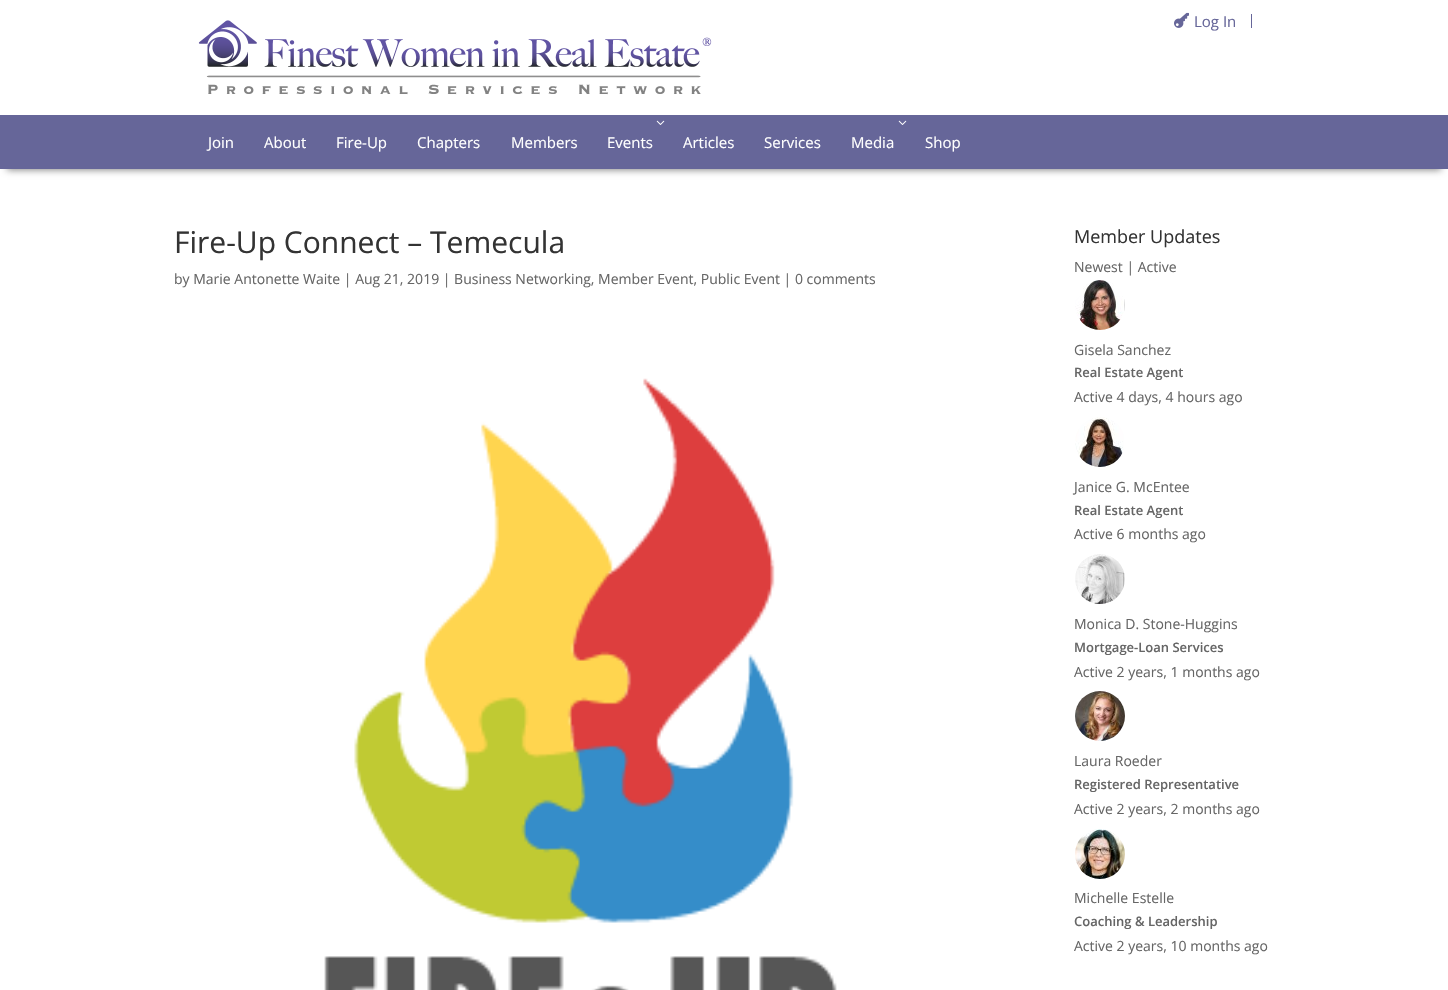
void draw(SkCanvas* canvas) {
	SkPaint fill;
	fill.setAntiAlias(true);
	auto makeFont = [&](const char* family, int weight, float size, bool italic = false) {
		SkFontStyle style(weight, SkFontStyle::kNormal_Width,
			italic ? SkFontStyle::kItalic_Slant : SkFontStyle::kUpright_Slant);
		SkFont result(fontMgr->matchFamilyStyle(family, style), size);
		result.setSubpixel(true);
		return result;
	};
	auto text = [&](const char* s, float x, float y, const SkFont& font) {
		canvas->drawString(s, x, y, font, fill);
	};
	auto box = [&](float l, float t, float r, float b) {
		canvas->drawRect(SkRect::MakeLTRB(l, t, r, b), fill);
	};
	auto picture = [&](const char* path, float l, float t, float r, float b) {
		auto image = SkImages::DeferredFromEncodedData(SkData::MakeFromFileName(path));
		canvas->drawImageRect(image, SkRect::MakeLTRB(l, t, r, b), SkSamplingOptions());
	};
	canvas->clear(0xFFFFFFFF);
	picture("image0.png", 198, 20, 712, 95);
	fill.setColor(0xFF666699);
	box(1251, 14, 1252, 28);
	picture("image1.png", 1174, 12, 1189, 28);
	fill.setColor(0x78000000);
	fill.setMaskFilter(SkMaskFilter::MakeBlur(kNormal_SkBlurStyle, 3.5f));
	canvas->drawRect(SkRect::MakeLTRB(7, 130, 1441, 170), fill);
	fill.setMaskFilter(nullptr);
	fill.setColor(0xFF666699);
	box(0, 115, 1448, 169);
	picture("image2.png", 656, 120, 665, 125);
	picture("image2.png", 898, 120, 907, 125);
	picture("image3.png", 324, 378, 837, 990);
	picture("image4.png", 1075, 280, 1125, 330);
	picture("image5.png", 1075, 417, 1124, 467);
	picture("image6.png", 1075, 554, 1125, 604);
	picture("image7.png", 1075, 691, 1125, 741);
	picture("image8.png", 1075, 829, 1125, 879);
	auto font1 = makeFont("Open Sans", 400, 15);
	text("Log In", 1194, 27, font1);
	fill.setColor(0xFFFFFFFF);
	text("Join", 208, 148, font1);
	text("About", 264, 148, font1);
	text("Fire-Up", 336, 148, font1);
	text("Chapters", 417, 148, font1);
	text("Members", 511, 148, font1);
	text("Events", 607, 148, font1);
	text("Articles", 683, 148, font1);
	text("Services", 764, 148, font1);
	text("Media", 851, 148, font1);
	text("Shop", 925, 148, font1);
	auto font2 = makeFont("Open Sans", 400, 30);
	fill.setColor(0xFF333333);
	text("Fire-Up Connect – Temecula", 174, 253, font2);
	auto font3 = makeFont("Open Sans", 400, 14);
	fill.setColor(0xFF666666);
	text("by Marie Antonette Waite | Aug 21, 2019 | Business Networking, Member Event, Public Event | 0 comments", 174, 284, font3);
	auto font4 = makeFont("Open Sans", 400, 18);
	fill.setColor(0xFF333333);
	text("Member Updates", 1074, 243, font4);
	fill.setColor(0xFF666666);
	text("Newest | Active", 1074, 272, font3);
	text("Gisela Sanchez", 1074, 355, font3);
	auto font5 = makeFont("Open Sans", 600, 13);
	text("Real Estate Agent", 1074, 377, font5);
	text("Active 4 days, 4 hours ago", 1074, 402, font3);
	text("Janice G. McEntee", 1074, 492, font3);
	text("Real Estate Agent", 1074, 515, font5);
	text("Active 6 months ago", 1074, 539, font3);
	text("Monica D. Stone-Huggins", 1074, 629, font3);
	text("Mortgage-Loan Services", 1074, 652, font5);
	text("Active 2 years, 1 months ago", 1074, 677, font3);
	text("Laura Roeder", 1074, 766, font3);
	text("Registered Representative", 1074, 789, font5);
	text("Active 2 years, 2 months ago", 1074, 814, font3);
	text("Michelle Estelle", 1074, 903, font3);
	text("Coaching & Leadership", 1074, 926, font5);
	text("Active 2 years, 10 months ago", 1074, 951, font3);
}
